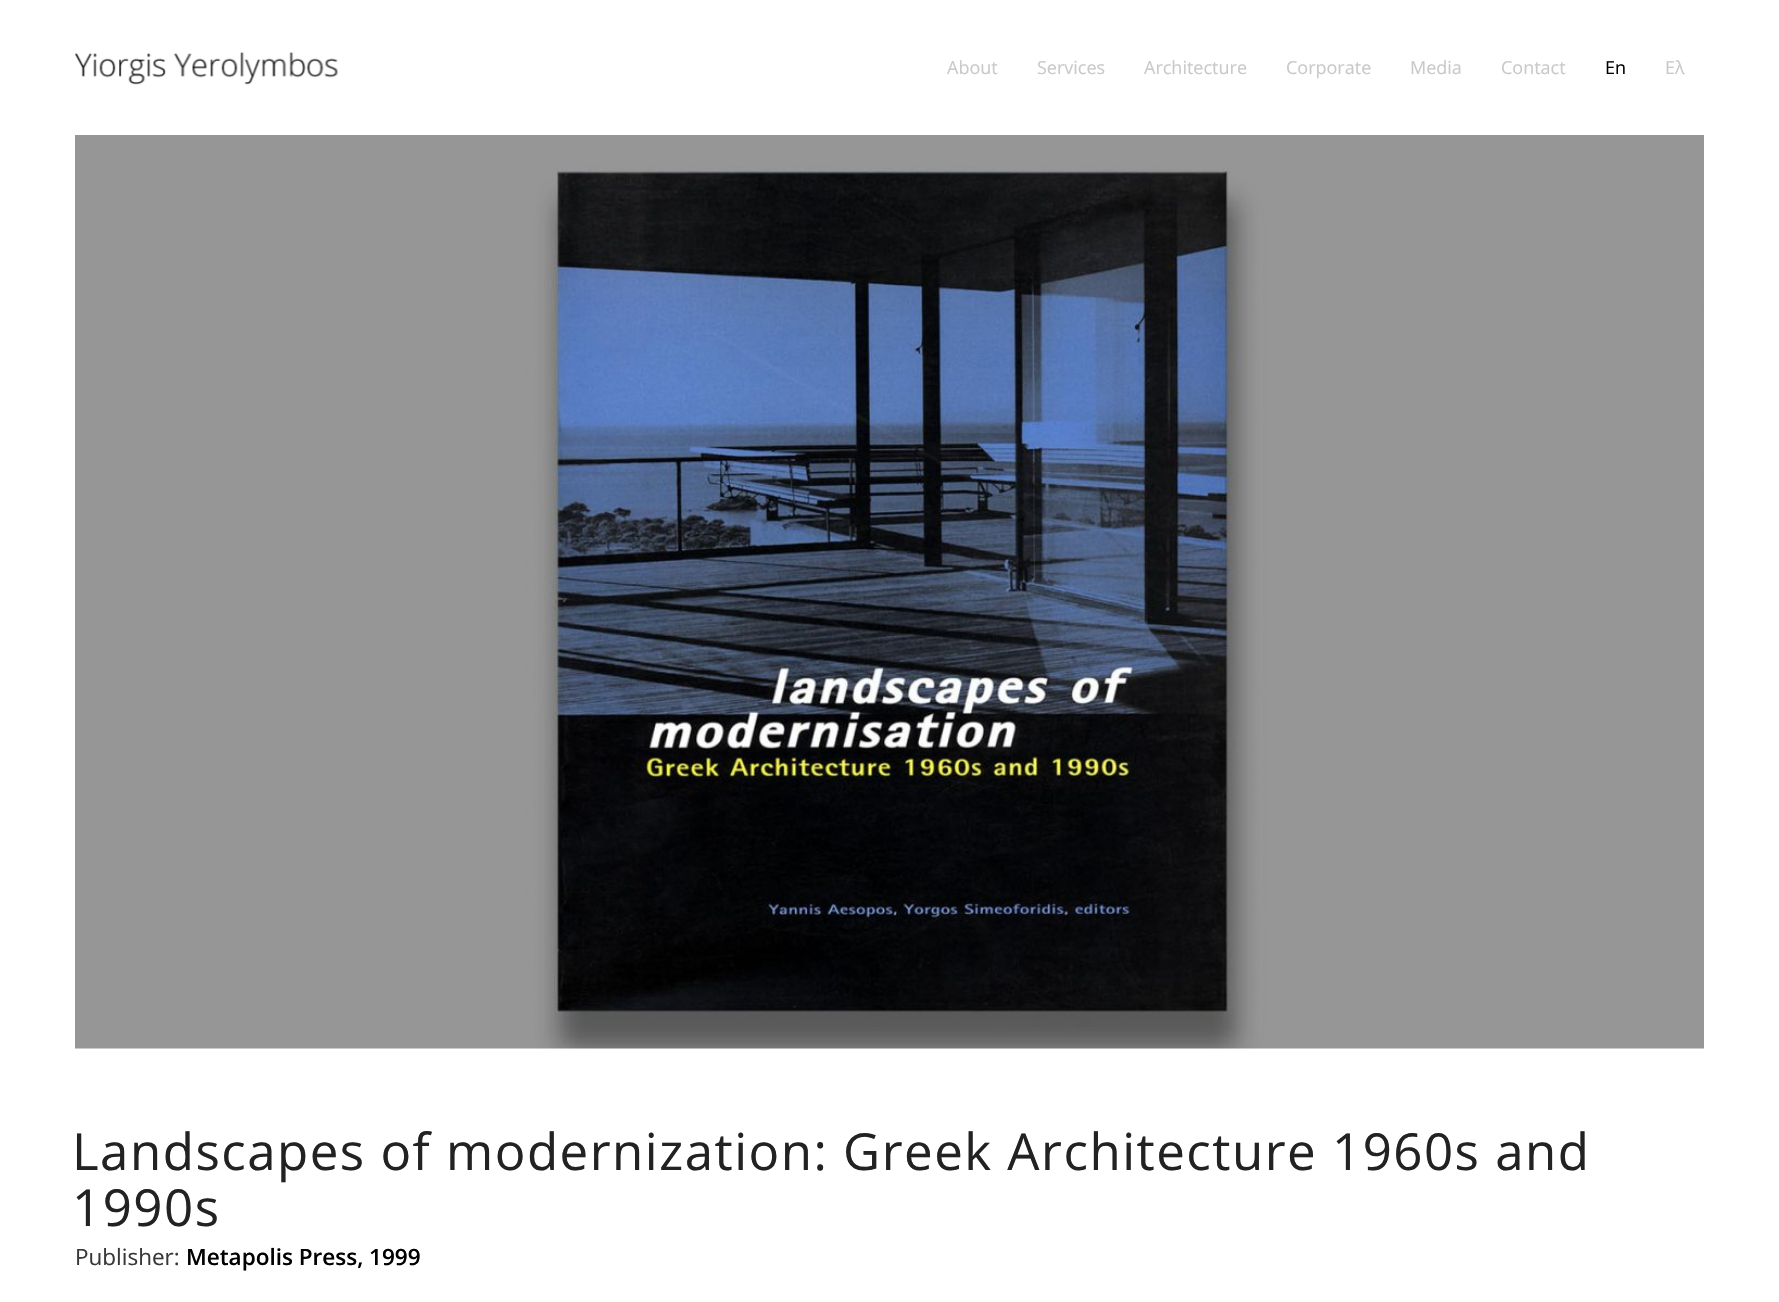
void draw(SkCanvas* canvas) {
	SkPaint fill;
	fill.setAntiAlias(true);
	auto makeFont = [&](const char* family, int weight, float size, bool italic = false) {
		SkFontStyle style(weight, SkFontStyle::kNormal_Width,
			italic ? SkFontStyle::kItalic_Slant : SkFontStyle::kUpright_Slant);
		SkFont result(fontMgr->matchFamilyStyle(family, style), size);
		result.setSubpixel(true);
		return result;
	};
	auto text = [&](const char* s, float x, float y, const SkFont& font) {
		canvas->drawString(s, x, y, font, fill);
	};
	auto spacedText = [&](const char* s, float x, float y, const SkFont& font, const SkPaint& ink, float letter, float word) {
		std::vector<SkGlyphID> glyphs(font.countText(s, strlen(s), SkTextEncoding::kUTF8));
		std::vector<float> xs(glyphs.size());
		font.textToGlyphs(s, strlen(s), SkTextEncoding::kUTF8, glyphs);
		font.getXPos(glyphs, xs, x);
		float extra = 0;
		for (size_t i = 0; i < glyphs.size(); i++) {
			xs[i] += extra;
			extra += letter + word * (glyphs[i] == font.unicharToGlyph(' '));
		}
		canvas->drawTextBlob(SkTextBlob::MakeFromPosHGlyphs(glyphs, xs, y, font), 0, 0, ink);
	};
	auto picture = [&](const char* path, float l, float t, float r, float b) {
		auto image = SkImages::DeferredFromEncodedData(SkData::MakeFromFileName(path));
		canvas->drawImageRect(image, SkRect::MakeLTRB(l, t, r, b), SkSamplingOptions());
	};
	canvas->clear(0xFFFFFFFF);
	picture("image0.png", 75, 52, 339, 85);
	picture("image1.png", 75, 135, 1704, 1049);
	auto font1 = makeFont("Open Sans", 400, 18);
	fill.setColor(0xFFC9C9C9);
	text("About", 947, 74, font1);
	text("Services", 1037, 74, font1);
	text("Architecture", 1144, 74, font1);
	text("Corporate", 1286, 74, font1);
	text("Media", 1410, 74, font1);
	text("Contact", 1501, 74, font1);
	fill.setColor(0xFF000000);
	text("En", 1605, 74, font1);
	fill.setColor(0xFFC9C9C9);
	text("Ελ", 1665, 74, font1);
	auto font2 = makeFont("Open Sans", 400, 51);
	fill.setColor(0xFF222222);
	spacedText("Landscapes of modernization: Greek Architecture 1960s and", 72, 1170, font2, fill, 1.5f, 0);
	spacedText("1990s", 72, 1226, font2, fill, 1.5f, 0);
	auto font3 = makeFont("Open Sans", 400, 22.5f);
	fill.setColor(0xFF383838);
	text("Publisher:", 75, 1265, font3);
	auto font4 = makeFont("Open Sans", 600, 22.5f);
	fill.setColor(0xFF000000);
	text("Metapolis Press, 1999", 186, 1265, font4);
}
